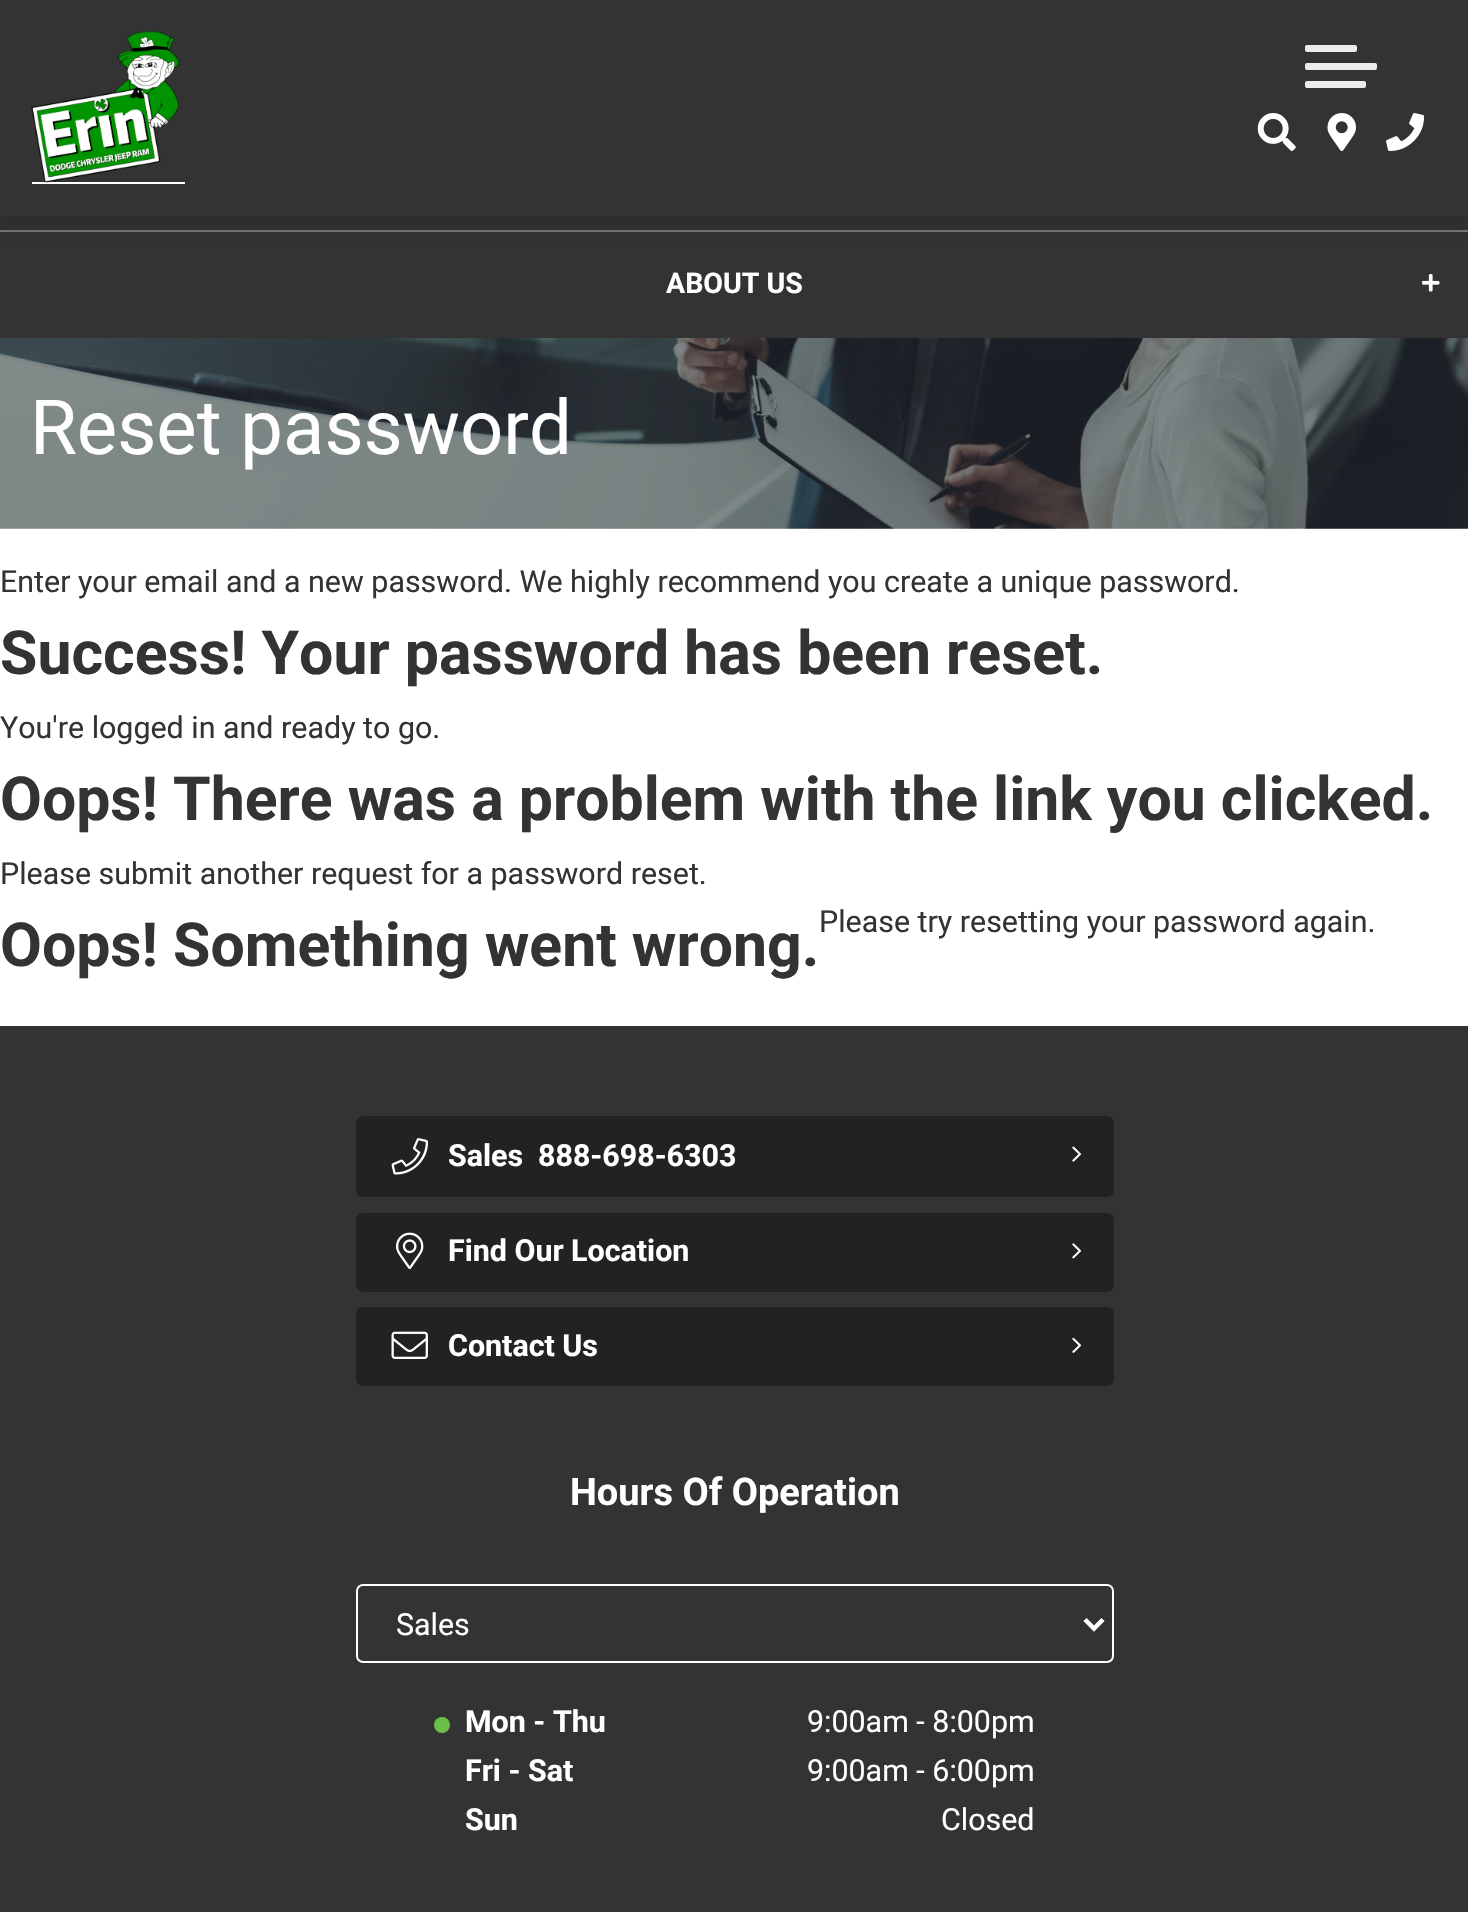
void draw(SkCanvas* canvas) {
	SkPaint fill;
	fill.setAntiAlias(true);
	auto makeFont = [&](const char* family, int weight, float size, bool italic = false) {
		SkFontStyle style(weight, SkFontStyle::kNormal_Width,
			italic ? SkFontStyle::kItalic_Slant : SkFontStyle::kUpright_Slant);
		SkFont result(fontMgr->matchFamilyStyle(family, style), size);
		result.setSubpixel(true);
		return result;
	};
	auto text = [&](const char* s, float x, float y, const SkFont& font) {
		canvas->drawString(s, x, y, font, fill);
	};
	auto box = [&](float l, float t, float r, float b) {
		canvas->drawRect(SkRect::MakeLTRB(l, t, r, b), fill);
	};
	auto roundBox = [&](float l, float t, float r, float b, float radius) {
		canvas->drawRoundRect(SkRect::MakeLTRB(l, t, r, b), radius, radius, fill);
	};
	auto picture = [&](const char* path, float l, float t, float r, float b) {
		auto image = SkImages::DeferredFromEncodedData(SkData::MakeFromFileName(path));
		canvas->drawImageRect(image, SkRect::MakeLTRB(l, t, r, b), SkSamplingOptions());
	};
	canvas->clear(0xFFFFFFFF);
	fill.setColor(0xFF333333);
	box(0, 216, 1468, 338);
	fill.setColor(0xFF777777);
	box(0, 230, 1468, 232);
	fill.setColor(0x33000000);
	fill.setMaskFilter(SkMaskFilter::MakeBlur(kNormal_SkBlurStyle, 11.5f));
	canvas->drawRect(SkRect::MakeLTRB(0, 7, 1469, 223), fill);
	fill.setMaskFilter(nullptr);
	fill.setColor(0xFF333333);
	box(0, 0, 1468, 216);
	fill.setColor(0xFFFFFFFF);
	box(32, 182, 185, 184);
	picture("image0.png", 31, 31, 179, 183);
	fill.setColor(0xFFECECEC);
	roundBox(1305, 63, 1377, 70, 2);
	roundBox(1305, 45, 1357, 52, 2);
	roundBox(1305, 81, 1366, 88, 2);
	picture("image1.png", 1257, 113, 1296, 151);
	picture("image2.png", 1327, 113, 1356, 151);
	picture("image3.png", 1386, 113, 1425, 151);
	picture("image4.png", 1422, 274, 1440, 292);
	picture("image5.png", 0, 338, 1468, 529);
	fill.setColor(0xFF333333);
	box(0, 1026, 1468, 1912);
	fill.setColor(0xFF222222);
	roundBox(356, 1116, 1114, 1197, 7);
	picture("image6.png", 391, 1138, 428, 1175);
	picture("image7.png", 1072, 1146, 1082, 1162);
	roundBox(356, 1213, 1114, 1292, 7);
	picture("image8.png", 396, 1232, 424, 1269);
	picture("image9.png", 1072, 1243, 1082, 1259);
	roundBox(356, 1307, 1114, 1386, 7);
	picture("image10.png", 391, 1331, 428, 1359);
	picture("image11.png", 1072, 1337, 1082, 1353);
	fill.setStyle(SkPaint::kStroke_Style);
	fill.setStrokeWidth(2);
	fill.setColor(0xFFFFFFFF);
	canvas->drawRoundRect(SkRect::MakeLTRB(357, 1585, 1113, 1662), 6, 6, fill);
	fill.setStrokeWidth(4.5f);
	canvas->drawPath(SkPathBuilder().moveTo(1085, 1619.5f).lineTo(1094, 1628.5f).lineTo(1103, 1619.5f).detach(), fill);
	fill.setStyle(SkPaint::kFill_Style);
	fill.setColor(0xFF6BBF49);
	canvas->drawCircle(442, 1725, 8, fill);
	auto font1 = makeFont("Roboto", 700, 28.5f);
	fill.setColor(0xFFFFFFFF);
	text("ABOUT US", 666, 293, font1);
	auto font2 = makeFont("Roboto", 400, 76);
	text("Reset password", 30, 454, font2);
	auto font3 = makeFont("Roboto", 400, 30.4f);
	fill.setColor(0xFF333333);
	text("Enter your email and a new password. We highly recommend you create a unique password.", 0, 592, font3);
	auto font4 = makeFont("Roboto", 700, 60.75f);
	text("Success! Your password has been reset.", 0, 674, font4);
	text("You're logged in and ready to go.", 0, 738, font3);
	text("Oops! There was a problem with the link you clicked.", 0, 820, font4);
	text("Please submit another request for a password reset.", 0, 884, font3);
	text("Oops! Something went wrong.", 0, 966, font4);
	text("Please try resetting your password again.", 819, 932, font3);
	auto font5 = makeFont("Roboto", 700, 30.4f);
	fill.setColor(0xFFFFFFFF);
	text("Sales", 448, 1166, font5);
	text("888-698-6303", 538, 1166, font5);
	text("Find Our Location", 448, 1261, font5);
	text("Contact Us", 448, 1356, font5);
	auto font6 = makeFont("Roboto", 700, 38);
	text("Hours Of Operation", 570, 1505, font6);
	text("Sales", 396, 1635, font3);
	text("Mon - Thu", 465, 1732, font5);
	text("9:00am - 8:00pm", 807, 1732, font3);
	text("Fri - Sat", 465, 1781, font5);
	text("9:00am - 6:00pm", 807, 1781, font3);
	text("Sun", 465, 1830, font5);
	text("Closed", 941, 1830, font3);
}
